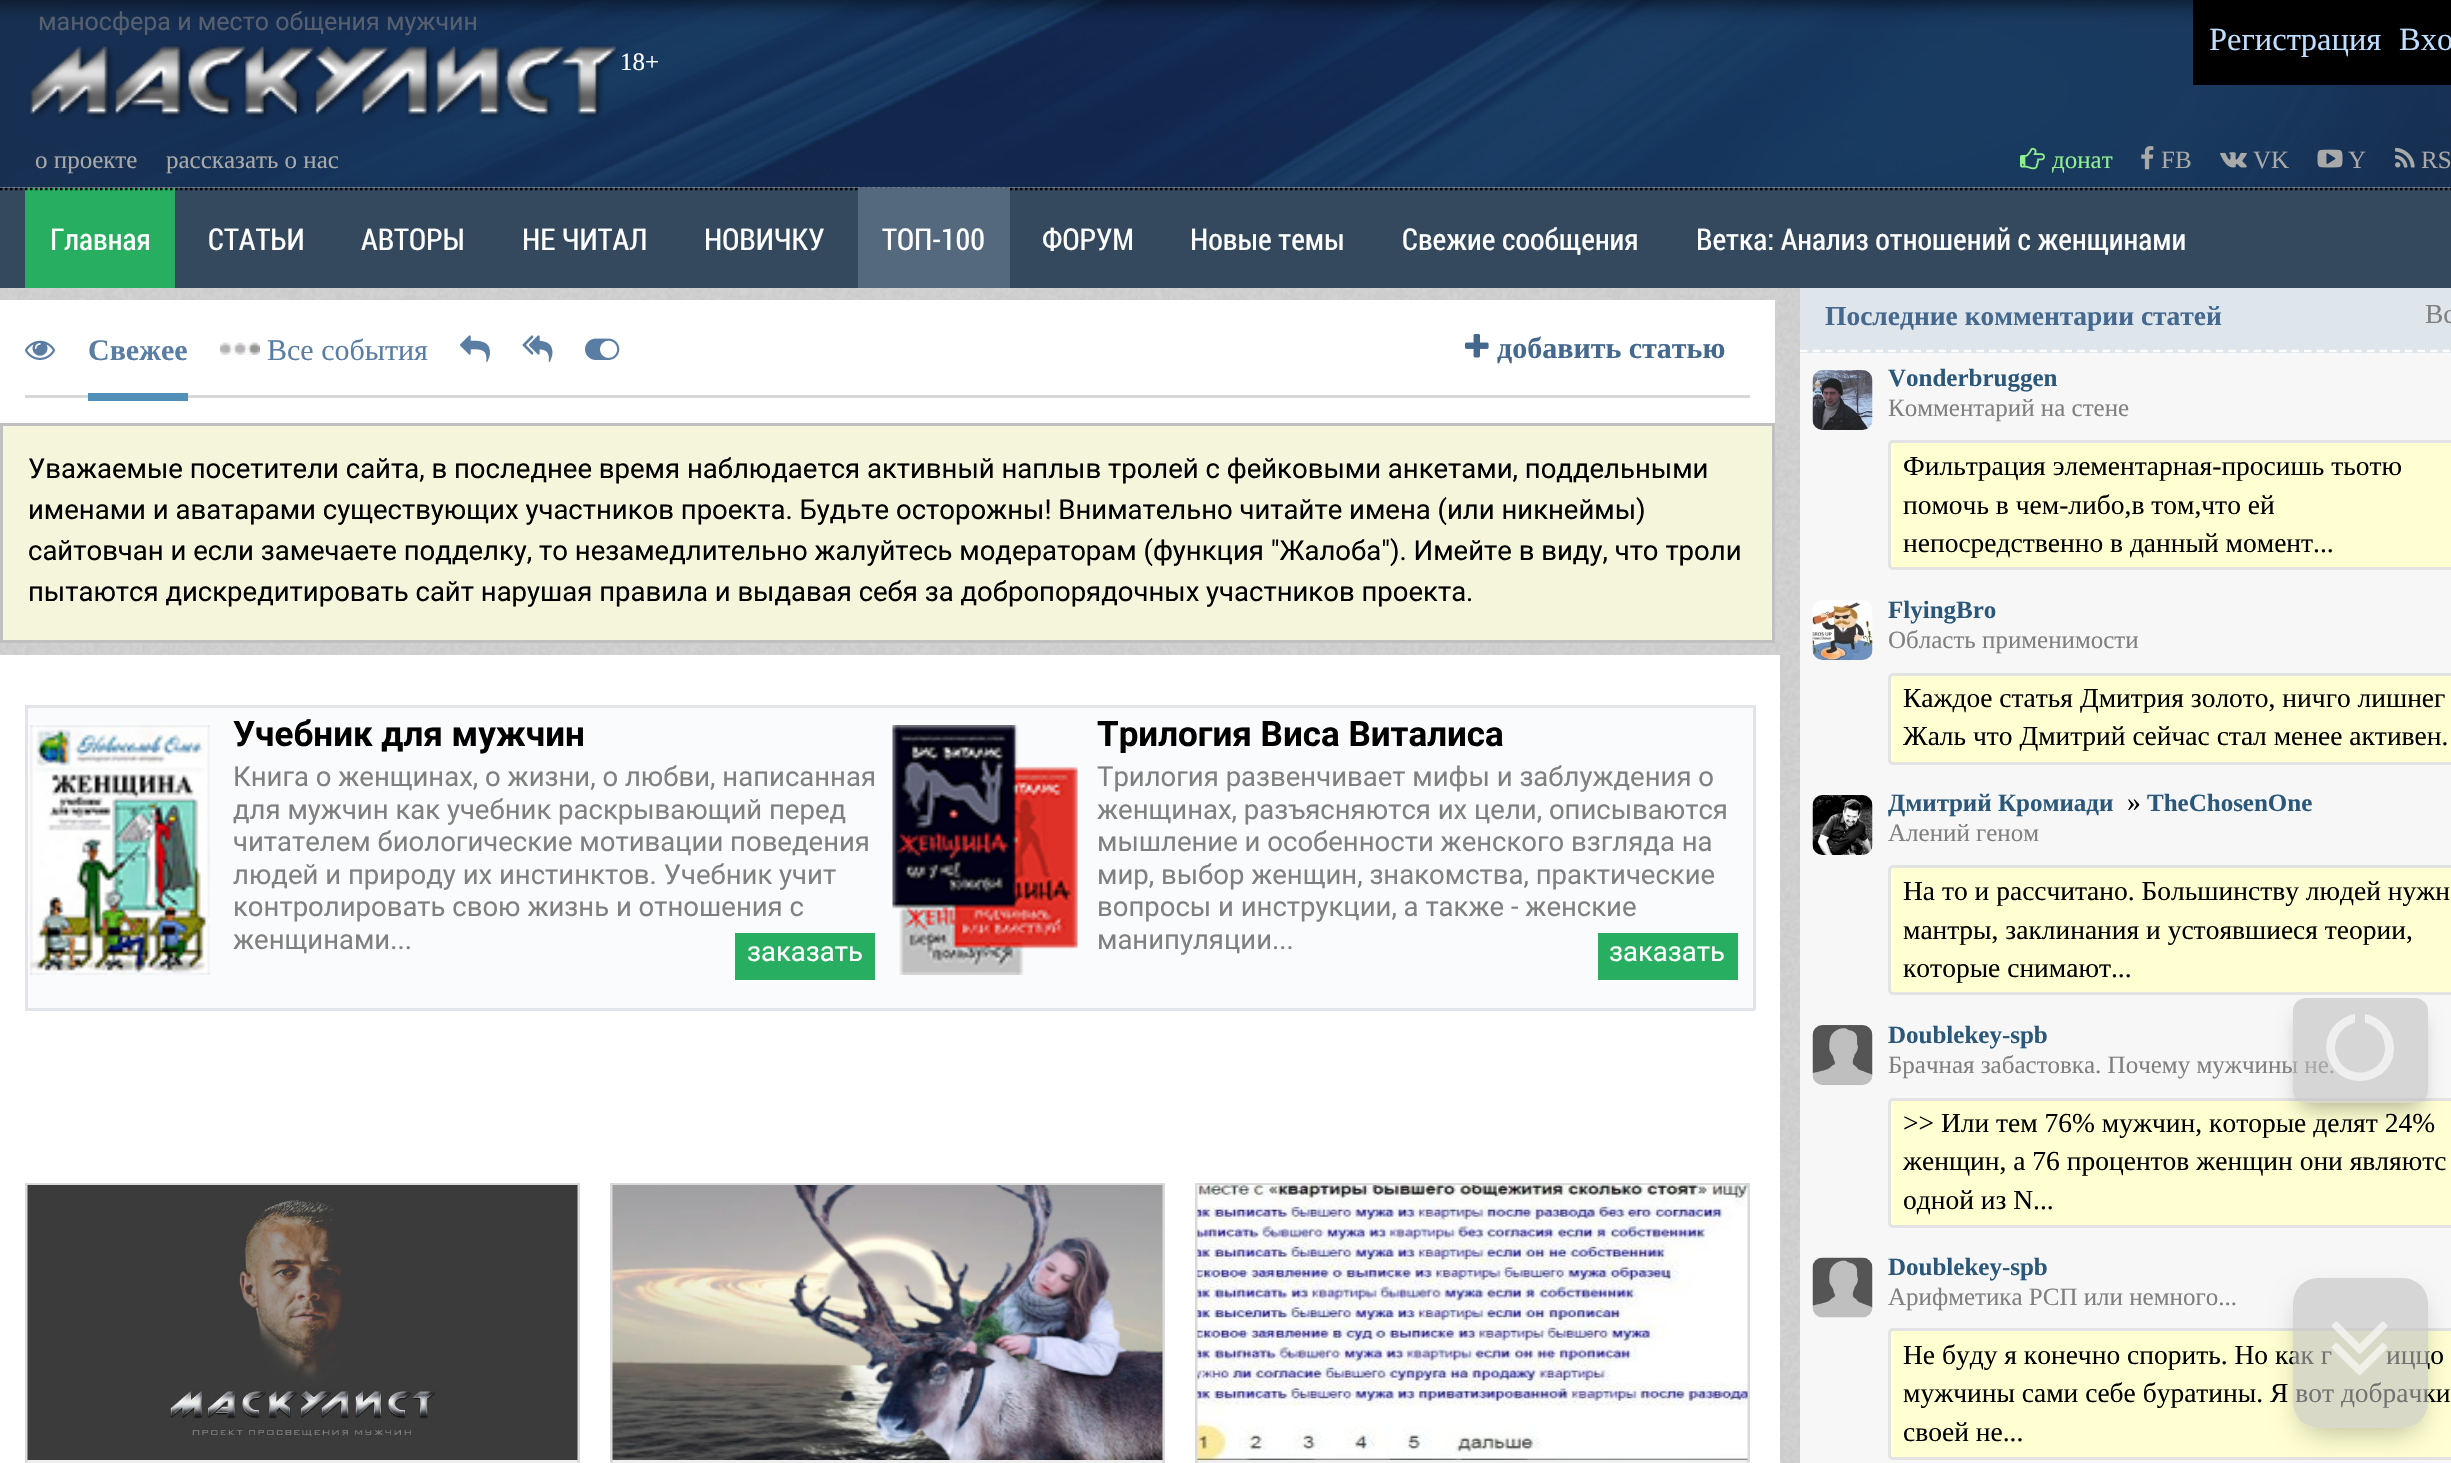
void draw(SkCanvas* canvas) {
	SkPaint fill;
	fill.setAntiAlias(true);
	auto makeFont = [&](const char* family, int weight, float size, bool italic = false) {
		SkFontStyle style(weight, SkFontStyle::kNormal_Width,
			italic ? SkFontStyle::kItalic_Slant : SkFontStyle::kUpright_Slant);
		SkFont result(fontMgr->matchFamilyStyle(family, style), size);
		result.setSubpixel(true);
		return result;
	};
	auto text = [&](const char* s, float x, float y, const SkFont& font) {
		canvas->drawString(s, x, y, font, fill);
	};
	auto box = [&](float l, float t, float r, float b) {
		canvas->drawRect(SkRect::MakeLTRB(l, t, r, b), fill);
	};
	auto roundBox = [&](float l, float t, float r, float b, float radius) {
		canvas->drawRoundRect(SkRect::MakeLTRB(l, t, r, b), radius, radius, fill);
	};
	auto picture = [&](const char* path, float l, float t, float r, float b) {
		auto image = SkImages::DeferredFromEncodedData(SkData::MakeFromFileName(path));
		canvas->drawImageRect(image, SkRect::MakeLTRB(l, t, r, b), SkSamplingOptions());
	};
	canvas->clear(0xFFFFFFFF);
	picture("image0.png", 0, 187, 2451, 1463);
	picture("image1.png", 0, 0, 2451, 188);
	fill.setColor(0xFF000000);
	box(2193, 0, 2451, 85);
	fill.setColor(0xCC000000);
	fill.setMaskFilter(SkMaskFilter::MakeBlur(kNormal_SkBlurStyle, 12.5f));
	canvas->drawRect(SkRect::MakeLTRB(-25, -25, 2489, 0), fill);
	fill.setMaskFilter(nullptr);
	picture("image2.png", 28, 44, 620, 120);
	fill.setColor(0xFF34495E);
	box(0, 188, 2451, 288);
	fill.setColor(0xFF27AE60);
	box(25, 188, 175, 288);
	fill.setStyle(SkPaint::kStroke_Style);
	fill.setStrokeWidth(2.5f);
	fill.setColor(0xFF000000);
	fill.setPathEffect(SkDashPathEffect::Make({{2.5f, 2.5f}}, 0));
	canvas->drawPath(SkPathBuilder().moveTo(0, 189).lineTo(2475, 189).detach(), fill);
	fill.setPathEffect(nullptr);
	picture("image3.png", 2020, 147, 2045, 170);
	picture("image4.png", 2141, 146, 2154, 170);
	picture("image5.png", 2220, 152, 2247, 168);
	picture("image6.png", 2317, 149, 2343, 168);
	picture("image7.png", 2395, 147, 2415, 168);
	fill.setStyle(SkPaint::kFill_Style);
	fill.setColor(0xFF54697E);
	box(858, 188, 1010, 288);
	fill.setColor(0xFFFFFFFF);
	box(0, 300, 1775, 423);
	fill.setColor(0xFFD8D8D8);
	box(25, 395, 1750, 398);
	picture("image8.png", 25, 340, 55, 360);
	fill.setColor(0xFF5190B8);
	box(88, 393, 188, 401);
	picture("image9.png", 220, 342, 260, 355);
	picture("image10.png", 460, 335, 490, 363);
	picture("image11.png", 522, 335, 553, 363);
	picture("image12.png", 585, 338, 620, 360);
	picture("image13.png", 1465, 333, 1489, 358);
	fill.setColor(0xFFF5F5DC);
	canvas->drawRect(SkRect::MakeLTRB(1.5f, 424.5f, 1773.5f, 641.5f), fill);
	fill.setStyle(SkPaint::kStroke_Style);
	fill.setStrokeWidth(3);
	fill.setColor(0xFFC0C0C0);
	canvas->drawRect(SkRect::MakeLTRB(1.5f, 424.5f, 1773.5f, 641.5f), fill);
	fill.setStyle(SkPaint::kFill_Style);
	fill.setColor(0xFFFFFFFF);
	box(0, 655, 1780, 1463);
	fill.setColor(0xFFFAFBFC);
	box(28, 708, 1753, 1008);
	fill.setColor(0xFFE1E4EB);
	box(25, 705, 1755, 708);
	box(1753, 705, 1756, 1010);
	box(25, 1008, 1755, 1011);
	box(25, 705, 28, 1010);
	picture("image14.png", 30, 725, 210, 975);
	fill.setColor(0xFF27AE60);
	box(735, 933, 875, 980);
	picture("image15.png", 892, 725, 1078, 975);
	box(1598, 933, 1738, 980);
	fill.setColor(0xFFEFEFEF);
	box(28, 1460, 577, 1463);
	fill.setStyle(SkPaint::kStroke_Style);
	fill.setColor(0xFFDADADA);
	canvas->drawRect(SkRect::MakeLTRB(26.5f, 1184.5f, 578.5f, 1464.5f), fill);
	picture("image16.png", 27, 1185, 578, 1460);
	fill.setStyle(SkPaint::kFill_Style);
	fill.setColor(0xFFEFEFEF);
	box(613, 1460, 1162, 1463);
	fill.setStyle(SkPaint::kStroke_Style);
	fill.setColor(0xFFDADADA);
	canvas->drawRect(SkRect::MakeLTRB(611.5f, 1184.5f, 1163.5f, 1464.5f), fill);
	picture("image17.png", 612, 1185, 1163, 1460);
	fill.setStyle(SkPaint::kFill_Style);
	fill.setColor(0xFFEFEFEF);
	box(1198, 1460, 1747, 1463);
	fill.setStyle(SkPaint::kStroke_Style);
	fill.setColor(0xFFDADADA);
	canvas->drawRect(SkRect::MakeLTRB(1196.5f, 1184.5f, 1748.5f, 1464.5f), fill);
	picture("image18.png", 1197, 1185, 1748, 1460);
	fill.setStyle(SkPaint::kFill_Style);
	fill.setColor(0xFFDEE5EB);
	box(1800, 288, 2451, 353);
	fill.setStyle(SkPaint::kStroke_Style);
	fill.setStrokeWidth(2.5f);
	fill.setColor(0xFFFFFFFF);
	fill.setPathEffect(SkDashPathEffect::Make({{7.5f, 5.1f}}, 0));
	canvas->drawPath(SkPathBuilder().moveTo(1800, 351).lineTo(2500, 351).detach(), fill);
	fill.setPathEffect(nullptr);
	fill.setStyle(SkPaint::kFill_Style);
	fill.setColor(0xFFF7F7F7);
	box(1800, 353, 2451, 1463);
	picture("image19.png", 1812, 370, 1873, 430);
	fill.setColor(0xFFFFFFD1);
	canvas->drawRoundRect(SkRect::MakeLTRB(1889.5f, 441.5f, 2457.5f, 568.5f), 3.5f, 3.5f, fill);
	fill.setStyle(SkPaint::kStroke_Style);
	fill.setStrokeWidth(3);
	fill.setColor(0xFFE3E3E3);
	canvas->drawRoundRect(SkRect::MakeLTRB(1889.5f, 441.5f, 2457.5f, 568.5f), 3.5f, 3.5f, fill);
	picture("image20.png", 1812, 600, 1873, 660);
	fill.setStyle(SkPaint::kFill_Style);
	fill.setColor(0xFFFFFFD1);
	canvas->drawRoundRect(SkRect::MakeLTRB(1889.5f, 674.5f, 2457.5f, 763.5f), 3.5f, 3.5f, fill);
	fill.setStyle(SkPaint::kStroke_Style);
	fill.setColor(0xFFE3E3E3);
	canvas->drawRoundRect(SkRect::MakeLTRB(1889.5f, 674.5f, 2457.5f, 763.5f), 3.5f, 3.5f, fill);
	picture("image21.png", 1812, 795, 1873, 855);
	fill.setStyle(SkPaint::kFill_Style);
	fill.setColor(0xFFFFFFD1);
	canvas->drawRoundRect(SkRect::MakeLTRB(1889.5f, 866.5f, 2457.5f, 993.5f), 3.5f, 3.5f, fill);
	fill.setStyle(SkPaint::kStroke_Style);
	fill.setColor(0xFFE3E3E3);
	canvas->drawRoundRect(SkRect::MakeLTRB(1889.5f, 866.5f, 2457.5f, 993.5f), 3.5f, 3.5f, fill);
	picture("image22.png", 1812, 1025, 1873, 1085);
	fill.setStyle(SkPaint::kFill_Style);
	fill.setColor(0xFFFFFFD1);
	canvas->drawRoundRect(SkRect::MakeLTRB(1889.5f, 1099.5f, 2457.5f, 1226.5f), 3.5f, 3.5f, fill);
	fill.setStyle(SkPaint::kStroke_Style);
	fill.setColor(0xFFE3E3E3);
	canvas->drawRoundRect(SkRect::MakeLTRB(1889.5f, 1099.5f, 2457.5f, 1226.5f), 3.5f, 3.5f, fill);
	picture("image23.png", 1812, 1257, 1873, 1318);
	fill.setStyle(SkPaint::kFill_Style);
	fill.setColor(0xFFFFFFD1);
	canvas->drawRoundRect(SkRect::MakeLTRB(1889.5f, 1329.5f, 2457.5f, 1458.5f), 3.5f, 3.5f, fill);
	fill.setStyle(SkPaint::kStroke_Style);
	fill.setColor(0xFFE3E3E3);
	canvas->drawRoundRect(SkRect::MakeLTRB(1889.5f, 1329.5f, 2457.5f, 1458.5f), 3.5f, 3.5f, fill);
	canvas->save();
	canvas->clipPath(SkPathBuilder(SkPathFillType::kEvenOdd).moveTo(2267, 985).lineTo(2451, 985).lineTo(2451, 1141).lineTo(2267, 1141).close().moveTo(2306, 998).lineTo(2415, 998).cubicTo(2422, 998, 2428, 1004, 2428, 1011).lineTo(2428, 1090).cubicTo(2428, 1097, 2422, 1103, 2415, 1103).lineTo(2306, 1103).cubicTo(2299, 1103, 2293, 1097, 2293, 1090).lineTo(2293, 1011).cubicTo(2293, 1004, 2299, 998, 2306, 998).close().detach(), true);
	fill.setStyle(SkPaint::kFill_Style);
	fill.setColor(0x4D000006);
	fill.setMaskFilter(SkMaskFilter::MakeBlur(kNormal_SkBlurStyle, 10.5f));
	canvas->drawRoundRect(SkRect::MakeLTRB(2300, 1018, 2420, 1108), 5, 5, fill);
	fill.setMaskFilter(nullptr);
	canvas->restore();
	canvas->save();
	canvas->clipPath(SkPathBuilder(SkPathFillType::kEvenOdd).moveTo(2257, 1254).lineTo(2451, 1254).lineTo(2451, 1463).lineTo(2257, 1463).close().moveTo(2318, 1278).lineTo(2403, 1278).cubicTo(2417, 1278, 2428, 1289, 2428, 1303).lineTo(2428, 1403).cubicTo(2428, 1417, 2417, 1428, 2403, 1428).lineTo(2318, 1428).cubicTo(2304, 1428, 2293, 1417, 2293, 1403).lineTo(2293, 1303).cubicTo(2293, 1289, 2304, 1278, 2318, 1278).close().detach(), true);
	fill.setMaskFilter(SkMaskFilter::MakeBlur(kNormal_SkBlurStyle, 15));
	canvas->drawRoundRect(SkRect::MakeLTRB(2303, 1300, 2418, 1430), 15, 15, fill);
	fill.setMaskFilter(nullptr);
	canvas->restore();
	auto font1 = makeFont("Roboto", 400, 25);
	fill.setColor(0xFF555F6E);
	text("маносфера и место общения мужчин", 38, 30, font1);
	auto font2 = makeFont("Liberation Serif", 400, 25);
	fill.setColor(0xFFFFFFFF);
	text("18+", 620, 70, font2);
	auto font3 = makeFont("Liberation Serif", 400, 32.5f);
	fill.setColor(0xFFBFDEFF);
	text("Регистрация", 2209, 50, font3);
	text("Вхо", 2399, 50, font3);
	fill.setColor(0xFFA9A9A9);
	text("о проекте", 35, 168, font2);
	text("рассказать о нас", 166, 168, font2);
	fill.setColor(0xFF90EE90);
	text("донат", 2052, 168, font2);
	fill.setColor(0xFFA9A9A9);
	text("FB", 2161, 168, font2);
	text("VK", 2253, 168, font2);
	text("Y", 2348, 168, font2);
	text("RS", 2421, 168, font2);
	auto font4 = makeFont("Roboto Condensed", 400, 30);
	fill.setColor(0xFFFFFFFF);
	text("Главная", 50, 250, font4);
	text("СТАТЬИ", 208, 250, font4);
	text("АВТОРЫ", 361, 250, font4);
	text("НЕ ЧИТАЛ", 522, 250, font4);
	text("НОВИЧКУ", 704, 250, font4);
	text("ТОП-100", 882, 250, font4);
	text("ФОРУМ", 1042, 250, font4);
	text("Новые темы", 1190, 250, font4);
	text("Свежие сообщения", 1402, 250, font4);
	text("Ветка: Анализ отношений с женщинами", 1696, 250, font4);
	auto font5 = makeFont("Liberation Serif", 700, 30);
	fill.setColor(0xFF597DA3);
	text("Свежее", 88, 360, font5);
	auto font6 = makeFont("Liberation Serif", 400, 30);
	text("Все события", 267, 360, font6);
	fill.setColor(0xFF45688E);
	text("добавить статью", 1497, 358, font5);
	auto font7 = makeFont("Roboto", 400, 27.5f);
	fill.setColor(0xFF000000);
	text("Уважаемые посетители сайта, в последнее время наблюдается активный наплыв тролей с фейковыми анкетами, поддельными", 28, 478, font7);
	text("именами и аватарами существующих участников проекта. Будьте осторожны! Внимательно читайте имена (или никнеймы)", 28, 519, font7);
	text("сайтовчан и если замечаете подделку, то незамедлительно жалуйтесь модераторам (функция \"Жалоба\"). Имейте в виду, что троли", 28, 560, font7);
	text("пытаются дискредитировать сайт нарушая правила и выдавая себя за добропорядочных участников проекта.", 28, 601, font7);
	auto font8 = makeFont("Roboto", 700, 35);
	text("Учебник для мужчин", 233, 746, font8);
	fill.setColor(0xFF808080);
	text("Книга о женщинах, о жизни, о любви, написанная", 233, 786, font7);
	text("для мужчин как учебник раскрывающий перед", 233, 819, font7);
	text("читателем биологические мотивации поведения", 233, 851, font7);
	text("людей и природу их инстинктов. Учебник учит", 233, 884, font7);
	text("контролировать свою жизнь и отношения с", 233, 916, font7);
	text("женщинами...", 233, 949, font7);
	fill.setColor(0xFFFFFFFF);
	text("заказать", 747, 961, font7);
	fill.setColor(0xFF000000);
	text("Трилогия Виса Виталиса", 1097, 746, font8);
	fill.setColor(0xFF808080);
	text("Трилогия развенчивает мифы и заблуждения о", 1097, 786, font7);
	text("женщинах, разъясняются их цели, описываются", 1097, 819, font7);
	text("мышление и особенности женского взгляда на", 1097, 851, font7);
	text("мир, выбор женщин, знакомства, практические", 1097, 884, font7);
	text("вопросы и инструкции, а также - женские", 1097, 916, font7);
	text("манипуляции...", 1097, 949, font7);
	fill.setColor(0xFFFFFFFF);
	text("заказать", 1609, 961, font7);
	auto font9 = makeFont("Liberation Serif", 700, 27.5f);
	fill.setColor(0xFF45688E);
	text("Последние комментарии статей", 1825, 325, font9);
	auto font10 = makeFont("Liberation Serif", 400, 27.5f);
	fill.setColor(0xFF808080);
	text("Вс", 2425, 323, font10);
	auto font11 = makeFont("Liberation Serif", 700, 25);
	fill.setColor(0xFF2B587A);
	text("Vonderbruggen", 1888, 386, font11);
	fill.setColor(0xFF808080);
	text("Комментарий на стене", 1888, 416, font2);
	fill.setColor(0xFF000000);
	text("Фильтрация элементарная-просишь тьотю", 1903, 475, font10);
	text("помочь в чем-либо,в том,что ей", 1903, 514, font10);
	text("непосредственно в данный момент...", 1903, 552, font10);
	fill.setColor(0xFF2B587A);
	text("FlyingBro", 1888, 618, font11);
	fill.setColor(0xFF808080);
	text("Область применимости", 1888, 648, font2);
	fill.setColor(0xFF000000);
	text("Каждое статья Дмитрия золото, ничго лишнег", 1903, 707, font10);
	text("Жаль что Дмитрий сейчас стал менее активен.", 1903, 745, font10);
	fill.setColor(0xFF2B587A);
	text("Дмитрий Кромиади", 1888, 811, font11);
	fill.setColor(0xFF000000);
	text("»", 2127, 811, font10);
	fill.setColor(0xFF2B587A);
	text("TheChosenOne", 2147, 811, font11);
	fill.setColor(0xFF808080);
	text("Алений геном", 1888, 841, font2);
	fill.setColor(0xFF000000);
	text("На то и рассчитано. Большинству людей нужн", 1903, 900, font10);
	text("мантры, заклинания и устоявшиеся теории,", 1903, 939, font10);
	text("которые снимают...", 1903, 977, font10);
	fill.setColor(0xFF2B587A);
	text("Doublekey-spb", 1888, 1043, font11);
	fill.setColor(0xFF808080);
	text("Брачная забастовка. Почему мужчины не.", 1888, 1073, font2);
	fill.setColor(0xFF000000);
	text(">> Или тем 76% мужчин, которые делят 24%", 1903, 1132, font10);
	text("женщин, а 76 процентов женщин они являютс", 1903, 1170, font10);
	text("одной из N...", 1903, 1209, font10);
	fill.setColor(0xFF2B587A);
	text("Doublekey-spb", 1888, 1275, font11);
	fill.setColor(0xFF808080);
	text("Арифметика РСП или немного...", 1888, 1305, font2);
	fill.setColor(0xFF000000);
	text("Не буду я конечно спорить. Но как г", 1903, 1364, font10);
	text("иццо", 2386, 1364, font10);
	text("мужчины сами себе буратины. Я вот добрачки", 1903, 1402, font10);
	text("своей не...", 1903, 1441, font10);
	fill.setColor(0x99C0C0C0);
	roundBox(2293, 998, 2428, 1103, 13);
	fill.setColor(0x99FFFFFF);
	canvas->drawPath(SkPathBuilder().moveTo(2394, 1048).cubicTo(2394, 1086, 2339, 1094, 2328, 1057).cubicTo(2325, 1050, 2326, 1041, 2329, 1034).cubicTo(2334, 1023, 2344, 1016, 2355, 1014).lineTo(2355, 1023).cubicTo(2340, 1026, 2331, 1043, 2337, 1057).cubicTo(2347, 1081, 2382, 1076, 2385, 1050).cubicTo(2385, 1045, 2384, 1040, 2382, 1035).cubicTo(2378, 1029, 2372, 1024, 2365, 1023).lineTo(2365, 1014).cubicTo(2381, 1017, 2394, 1031, 2394, 1048).close().detach(), fill);
	fill.setColor(0x99C0C0C0);
	roundBox(2293, 1278, 2428, 1428, 25);
	picture("image24.png", 2331, 1321, 2388, 1376);
}
